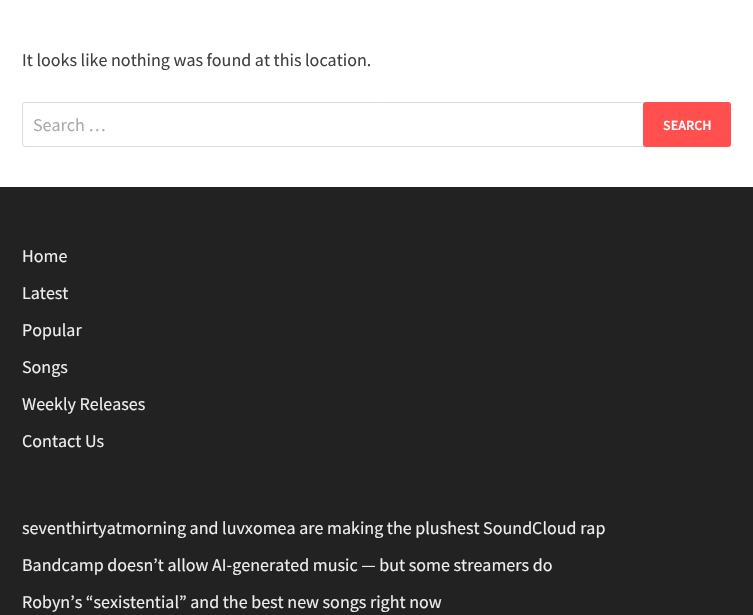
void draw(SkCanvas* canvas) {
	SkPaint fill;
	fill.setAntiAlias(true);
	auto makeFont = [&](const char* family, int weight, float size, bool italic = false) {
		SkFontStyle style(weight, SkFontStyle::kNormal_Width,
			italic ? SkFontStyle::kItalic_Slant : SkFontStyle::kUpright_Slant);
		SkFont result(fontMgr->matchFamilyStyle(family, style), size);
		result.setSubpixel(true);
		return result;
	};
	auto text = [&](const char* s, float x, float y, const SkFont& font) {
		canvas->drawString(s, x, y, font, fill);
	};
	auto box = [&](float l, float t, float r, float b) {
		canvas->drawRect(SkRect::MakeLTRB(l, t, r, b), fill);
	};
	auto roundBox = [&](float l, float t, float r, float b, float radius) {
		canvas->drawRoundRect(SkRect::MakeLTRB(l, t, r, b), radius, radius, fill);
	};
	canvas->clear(0xFFFFFFFF);
	fill.setStyle(SkPaint::kStroke_Style);
	fill.setStrokeWidth(1);
	fill.setColor(0xFFDDDDDD);
	canvas->drawRoundRect(SkRect::MakeLTRB(22.5f, 102.5f, 730.5f, 146.5f), 2.5f, 2.5f, fill);
	fill.setStyle(SkPaint::kFill_Style);
	fill.setColor(0xFFFF4F4F);
	roundBox(643, 102, 731, 147, 3);
	fill.setColor(0xFF222222);
	box(0, 187, 753, 615);
	auto font1 = makeFont("Source Sans Pro", 400, 18);
	fill.setColor(0xFF404040);
	text("It looks like nothing was found at this location.", 22, 66, font1);
	fill.setColor(0xFFAAAAAA);
	text("Search …", 33, 131, font1);
	auto font2 = makeFont("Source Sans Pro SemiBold", 600, 14);
	fill.setColor(0xFFFFFFFF);
	text("SEARCH", 663, 130, font2);
	fill.setColor(0xFFEEEEEE);
	text("Home", 22, 262, font1);
	text("Latest", 22, 299, font1);
	text("Popular", 22, 336, font1);
	text("Songs", 22, 373, font1);
	text("Weekly Releases", 22, 410, font1);
	text("Contact Us", 22, 447, font1);
	text("seventhirtyatmorning and luvxomea are making the plushest SoundCloud rap", 22, 534, font1);
	text("Bandcamp doesn’t allow AI-generated music — but some streamers do", 22, 571, font1);
	text("Robyn’s “sexistential” and the best new songs right now", 22, 608, font1);
}
